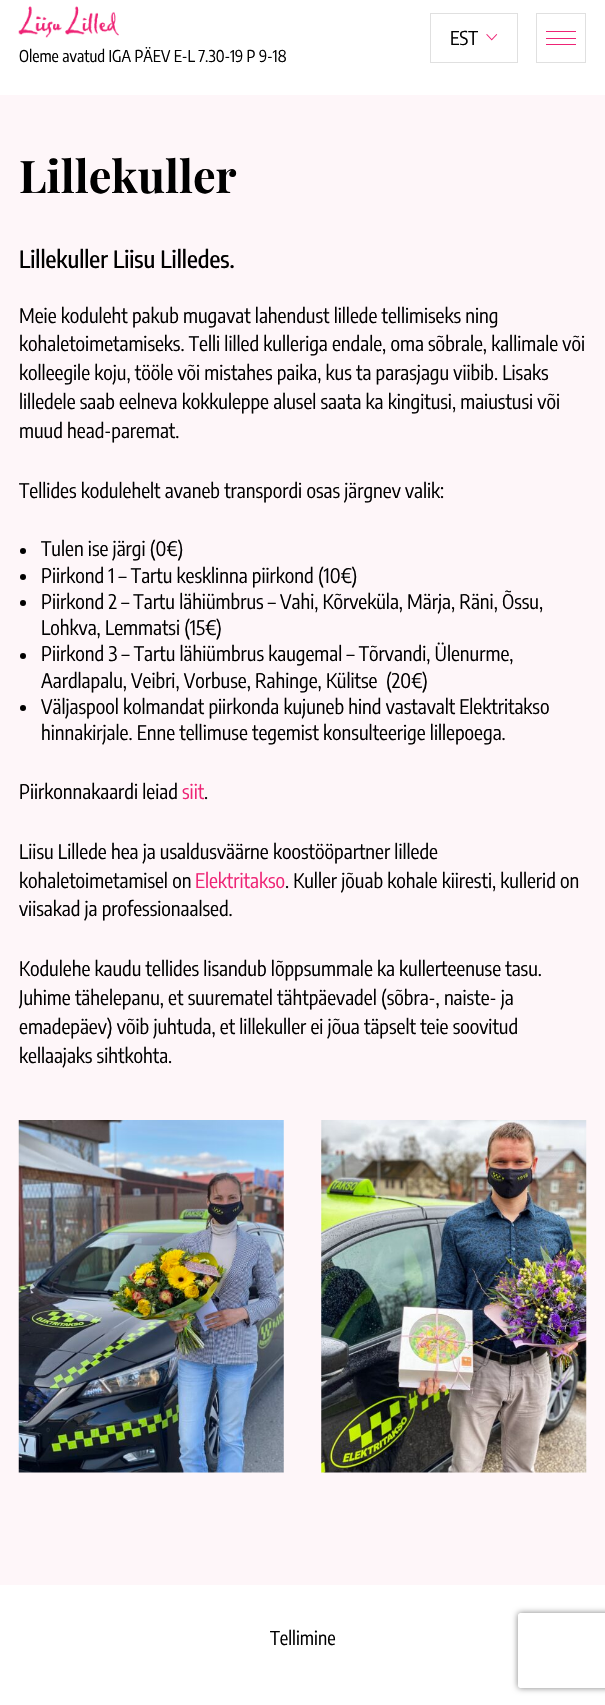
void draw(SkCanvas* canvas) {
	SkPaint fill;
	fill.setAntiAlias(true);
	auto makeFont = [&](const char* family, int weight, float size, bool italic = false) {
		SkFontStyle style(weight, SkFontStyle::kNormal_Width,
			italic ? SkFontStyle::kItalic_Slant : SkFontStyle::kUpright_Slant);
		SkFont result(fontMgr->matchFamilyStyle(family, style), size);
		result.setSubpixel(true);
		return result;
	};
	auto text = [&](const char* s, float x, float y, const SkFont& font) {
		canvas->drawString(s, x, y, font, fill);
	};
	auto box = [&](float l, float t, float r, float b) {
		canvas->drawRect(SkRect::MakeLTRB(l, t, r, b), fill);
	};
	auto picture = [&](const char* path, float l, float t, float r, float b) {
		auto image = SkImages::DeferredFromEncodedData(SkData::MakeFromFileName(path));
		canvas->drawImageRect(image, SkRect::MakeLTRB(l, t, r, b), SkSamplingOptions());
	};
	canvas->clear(0xFFFFFFFF);
	fill.setStyle(SkPaint::kStroke_Style);
	fill.setStrokeWidth(1);
	fill.setColor(0xFFE0E0E0);
	canvas->drawRect(SkRect::MakeLTRB(430.5f, 13.5f, 517.5f, 62.5f), fill);
	picture("image0.png", 486, 34, 498, 41);
	canvas->drawRect(SkRect::MakeLTRB(536.5f, 13.5f, 585.5f, 62.5f), fill);
	fill.setStyle(SkPaint::kFill_Style);
	fill.setColor(0xFFEE2375);
	box(546, 31, 576, 32);
	box(546, 38, 576, 39);
	box(546, 44, 576, 45);
	picture("image1.png", 18, 6, 119, 38);
	fill.setColor(0xFFFEF6F9);
	box(0, 95, 605, 1585);
	fill.setColor(0xFF000000);
	canvas->drawCircle(23, 551, 3, fill);
	canvas->drawCircle(23, 577, 3, fill);
	canvas->drawCircle(23, 603, 3, fill);
	canvas->drawCircle(23, 656, 3, fill);
	canvas->drawCircle(23, 708, 3, fill);
	picture("image2.png", 18, 1120, 284, 1473);
	picture("image3.png", 321, 1120, 587, 1473);
	canvas->save();
	canvas->clipPath(SkPathBuilder(SkPathFillType::kEvenOdd).moveTo(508, 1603).lineTo(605, 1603).lineTo(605, 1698).lineTo(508, 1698).close().moveTo(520.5f, 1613).lineTo(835.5f, 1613).cubicTo(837, 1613, 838, 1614, 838, 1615.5f).lineTo(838, 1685.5f).cubicTo(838, 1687, 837, 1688, 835.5f, 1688).lineTo(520.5f, 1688).cubicTo(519, 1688, 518, 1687, 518, 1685.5f).lineTo(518, 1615.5f).cubicTo(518, 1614, 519, 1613, 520.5f, 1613).close().detach(), true);
	fill.setColor(0xFF808080);
	fill.setMaskFilter(SkMaskFilter::MakeBlur(kNormal_SkBlurStyle, 3));
	canvas->drawRoundRect(SkRect::MakeLTRB(518, 1613, 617, 1688), 2.5f, 2.5f, fill);
	fill.setMaskFilter(nullptr);
	canvas->restore();
	auto font1 = makeFont("Encode Sans Condensed", 400, 19);
	fill.setColor(0xFF000000);
	text("EST", 450, 45, font1);
	auto font2 = makeFont("Encode Sans Condensed", 400, 16.25f);
	text("Oleme avatud IGA PÄEV E-L 7.30-19 P 9-18", 19, 62, font2);
	auto font3 = makeFont("Playfair Display", 700, 45);
	text("Lillekuller", 19, 193, font3);
	auto font4 = makeFont("Encode Sans Condensed", 500, 23.75f);
	text("Lillekuller Liisu Lilledes.", 19, 268, font4);
	auto font5 = makeFont("Encode Sans Condensed", 400, 20);
	text("Meie koduleht pakub mugavat lahendust lillede tellimiseks ning", 19, 323, font5);
	text("kohaletoimetamiseks. Telli lilled kulleriga endale, oma sõbrale, kallimale või", 19, 351, font5);
	text("kolleegile koju, tööle või mistahes paika, kus ta parasjagu viibib. Lisaks", 19, 380, font5);
	text("lilledele saab eelneva kokkuleppe alusel saata ka kingitusi, maiustusi või", 19, 409, font5);
	text("muud head-paremat.", 19, 438, font5);
	text("Tellides kodulehelt avaneb transpordi osas järgnev valik:", 19, 498, font5);
	text("Tulen ise järgi (0€)", 41, 556, font5);
	text("Piirkond 1 – Tartu kesklinna piirkond (10€)", 41, 583, font5);
	text("Piirkond 2 – Tartu lähiümbrus – Vahi, Kõrveküla, Märja, Räni, Õssu,", 41, 609, font5);
	text("Lohkva, Lemmatsi (15€)", 41, 635, font5);
	text("Piirkond 3 – Tartu lähiümbrus kaugemal – Tõrvandi, Ülenurme,", 41, 661, font5);
	text("Aardlapalu, Veibri, Vorbuse, Rahinge, Külitse  (20€)", 41, 688, font5);
	text("Väljaspool kolmandat piirkonda kujuneb hind vastavalt Elektritakso", 41, 714, font5);
	text("hinnakirjale. Enne tellimuse tegemist konsulteerige lillepoega.", 41, 740, font5);
	text("Piirkonnakaardi leiad", 19, 799, font5);
	fill.setColor(0xFFEE2375);
	text("siit", 182, 799, font5);
	fill.setColor(0xFF000000);
	text(".", 204, 799, font5);
	text("Liisu Lillede hea ja usaldusväärne koostööpartner lillede", 19, 859, font5);
	text("kohaletoimetamisel on", 19, 888, font5);
	fill.setColor(0xFFEE2375);
	text("Elektritakso", 195, 888, font5);
	fill.setColor(0xFF000000);
	text(". Kuller jõuab kohale kiiresti, kullerid on", 285, 888, font5);
	text("viisakad ja professionaalsed.", 19, 916, font5);
	text("Kodulehe kaudu tellides lisandub lõppsummale ka kullerteenuse tasu.", 19, 976, font5);
	text("Juhime tähelepanu, et suurematel tähtpäevadel (sõbra-, naiste- ja", 19, 1005, font5);
	text("emadepäev) võib juhtuda, et lillekuller ei jõua täpselt teie soovitud", 19, 1034, font5);
	text("kellaajaks sihtkohta.", 19, 1063, font5);
	text("Tellimine", 270, 1645, font1);
}
